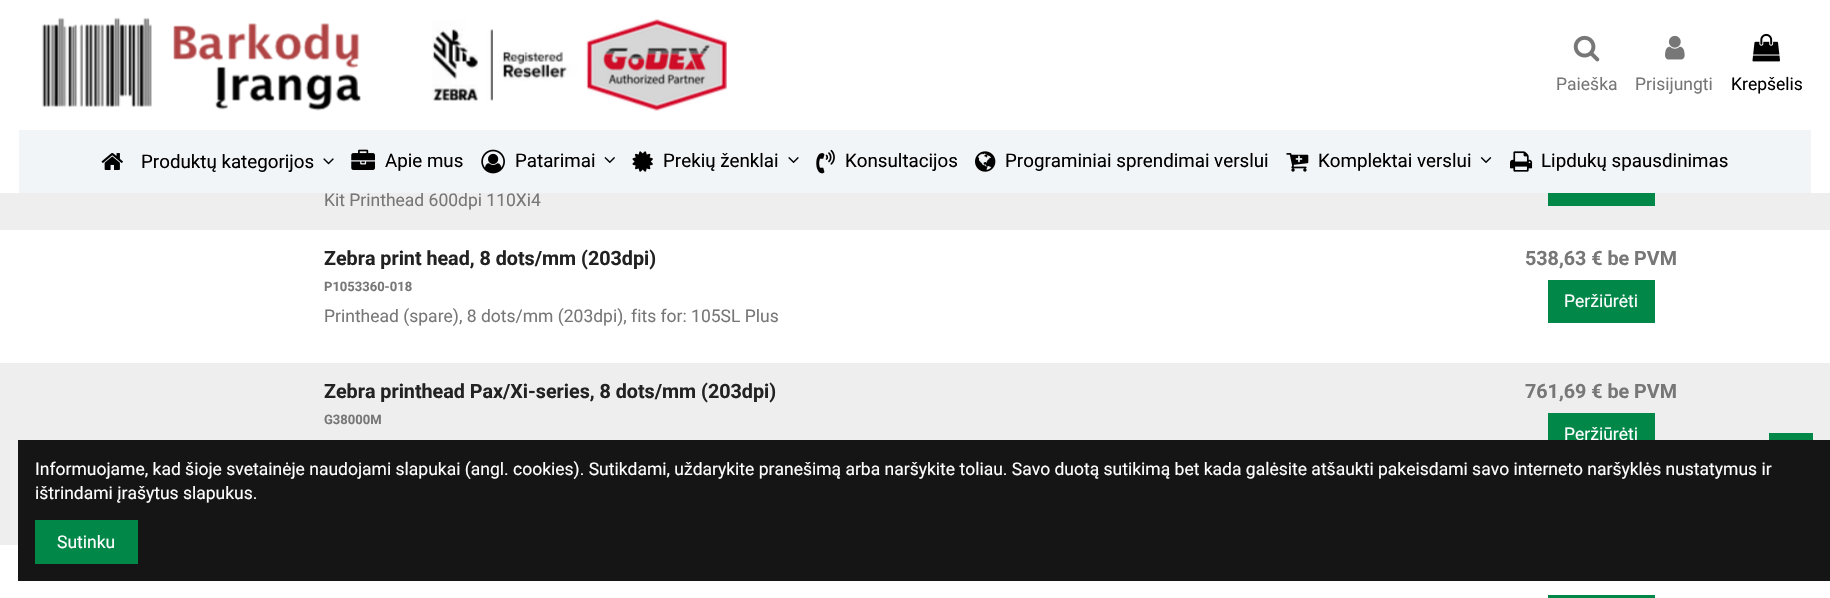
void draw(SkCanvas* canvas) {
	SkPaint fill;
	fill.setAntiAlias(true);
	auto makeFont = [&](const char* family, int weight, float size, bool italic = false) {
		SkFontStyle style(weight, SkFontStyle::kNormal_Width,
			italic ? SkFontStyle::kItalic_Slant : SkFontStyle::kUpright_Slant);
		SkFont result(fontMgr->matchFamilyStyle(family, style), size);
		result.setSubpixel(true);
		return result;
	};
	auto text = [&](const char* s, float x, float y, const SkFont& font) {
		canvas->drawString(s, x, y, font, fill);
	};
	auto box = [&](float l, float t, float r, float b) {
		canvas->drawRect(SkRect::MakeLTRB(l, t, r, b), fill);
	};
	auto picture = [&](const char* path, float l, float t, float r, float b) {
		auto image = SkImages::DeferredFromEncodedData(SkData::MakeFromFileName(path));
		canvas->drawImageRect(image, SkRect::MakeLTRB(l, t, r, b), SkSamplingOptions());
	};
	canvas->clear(0xFFFFFFFF);
	picture("image0.png", 41, 17, 361, 111);
	picture("image1.png", 432, 19, 727, 111);
	picture("image2.png", 1573, 35, 1600, 62);
	picture("image3.png", 1665, 35, 1685, 60);
	picture("image4.png", 1752, 33, 1780, 62);
	fill.setColor(0xFFEEEEEE);
	box(0, 193, 1830, 230);
	fill.setColor(0xFF018849);
	box(1548, 193, 1655, 206);
	box(1548, 280, 1655, 323);
	fill.setColor(0xFFEEEEEE);
	box(0, 363, 1830, 545);
	fill.setColor(0xFF018849);
	box(1548, 413, 1655, 440);
	box(1548, 595, 1655, 598);
	box(1769, 433, 1813, 440);
	auto font1 = makeFont("Roboto", 400, 17.5f);
	fill.setColor(0xFF777777);
	text("Paieška", 1556, 90, font1);
	text("Prisijungti", 1635, 90, font1);
	fill.setColor(0xFF000000);
	text("Krepšelis", 1731, 90, font1);
	fill.setColor(0xFF777777);
	text("Kit Printhead 600dpi 110Xi4", 324, 206, font1);
	fill.setColor(0xFFFFFFFF);
	box(387, 192, 467, 193);
	fill.setColor(0xFFF2F5F8);
	box(19, 130, 1811, 193);
	auto font2 = makeFont("Roboto", 400, 18.75f);
	fill.setColor(0xFF000000);
	text("Lipdukų spausdinimas", 1541, 167, font2);
	picture("image16.png", 1510, 151, 1533, 172);
	picture("image15.png", 1480, 157, 1492, 163);
	text("Komplektai verslui", 1318, 167, font2);
	picture("image14.png", 1286, 153, 1309, 172);
	text("Programiniai sprendimai verslui", 1005, 167, font2);
	picture("image13.png", 975, 151, 996, 172);
	text("Konsultacijos", 845, 167, font2);
	picture("image12.png", 816, 149, 835, 174);
	picture("image11.png", 788, 157, 799, 163);
	text("Prekių ženklai", 663, 167, font2);
	picture("image10.png", 632, 151, 653, 172);
	picture("image9.png", 604, 157, 615, 163);
	text("Patarimai", 515, 167, font2);
	picture("image8.png", 481, 149, 505, 174);
	text("Apie mus", 385, 167, font2);
	picture("image7.png", 351, 149, 375, 170);
	picture("image6.png", 323, 158, 334, 165);
	text("Produktų kategorijos", 141, 168, font2);
	picture("image5.png", 101, 153, 123, 170);
	auto font3 = makeFont("Roboto", 700, 19.7f);
	fill.setColor(0xFF222222);
	text("Zebra print head, 8 dots/mm (203dpi)", 324, 265, font3);
	auto font4 = makeFont("Roboto", 700, 13);
	fill.setColor(0xFF777777);
	text("P1053360-018", 324, 291, font4);
	text("Printhead (spare), 8 dots/mm (203dpi), fits for: 105SL Plus", 324, 322, font1);
	text("538,63 € be PVM", 1525, 265, font3);
	fill.setColor(0xFFFFFFFF);
	text("Peržiūrėti", 1564, 307, font1);
	fill.setColor(0xFF222222);
	text("Zebra printhead Pax/Xi-series, 8 dots/mm (203dpi)", 324, 398, font3);
	fill.setColor(0xFF777777);
	text("G38000M", 324, 424, font4);
	text("761,69 € be PVM", 1525, 398, font3);
	fill.setColor(0xFFFFFFFF);
	text("Peržiūrėti", 1564, 440, font1);
	fill.setColor(0xFF151515);
	box(18, 440, 1830, 581);
	fill.setColor(0xFFFFFFFF);
	text("Informuojame, kad šioje svetainėje naudojami slapukai (angl. cookies). Sutikdami, uždarykite pranešimą arba naršykite toliau. Savo duotą sutikimą bet kada galėsite atšaukti pakeisdami savo interneto naršyklės nustatymus ir", 35, 475, font1);
	text("ištrindami įrašytus slapukus.", 35, 499, font1);
	fill.setColor(0xFF018849);
	box(35, 520, 138, 564);
	fill.setColor(0xFFFFFFFF);
	text("Sutinku", 57, 548, font1);
}
